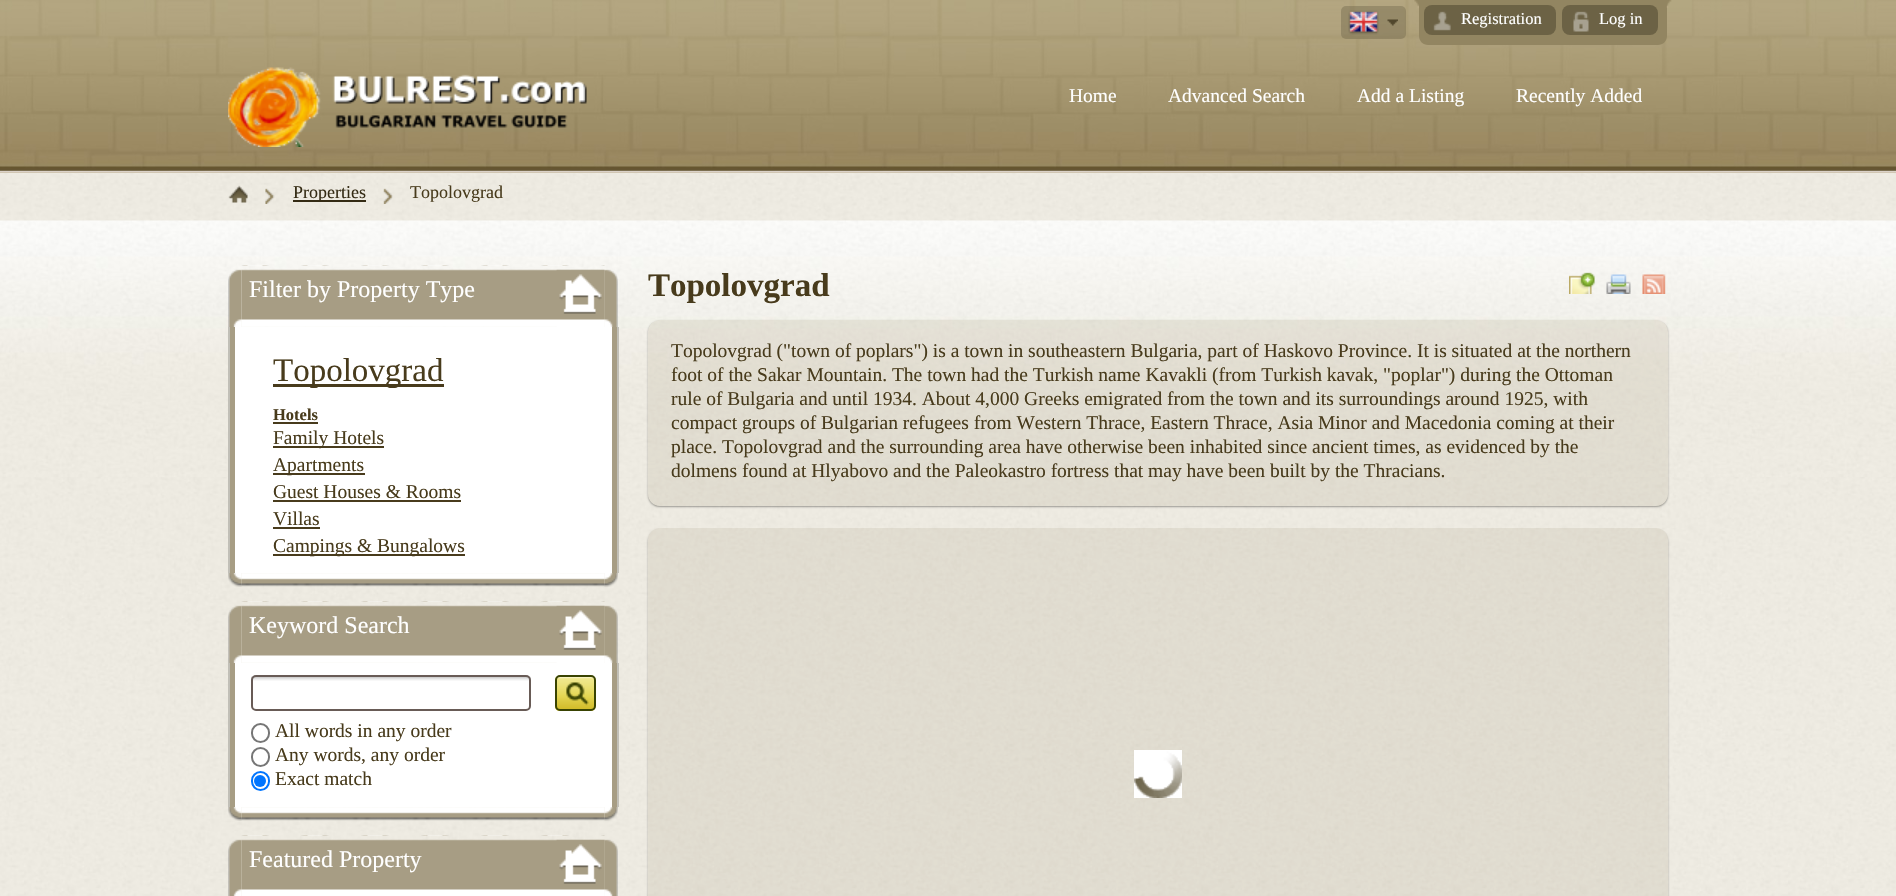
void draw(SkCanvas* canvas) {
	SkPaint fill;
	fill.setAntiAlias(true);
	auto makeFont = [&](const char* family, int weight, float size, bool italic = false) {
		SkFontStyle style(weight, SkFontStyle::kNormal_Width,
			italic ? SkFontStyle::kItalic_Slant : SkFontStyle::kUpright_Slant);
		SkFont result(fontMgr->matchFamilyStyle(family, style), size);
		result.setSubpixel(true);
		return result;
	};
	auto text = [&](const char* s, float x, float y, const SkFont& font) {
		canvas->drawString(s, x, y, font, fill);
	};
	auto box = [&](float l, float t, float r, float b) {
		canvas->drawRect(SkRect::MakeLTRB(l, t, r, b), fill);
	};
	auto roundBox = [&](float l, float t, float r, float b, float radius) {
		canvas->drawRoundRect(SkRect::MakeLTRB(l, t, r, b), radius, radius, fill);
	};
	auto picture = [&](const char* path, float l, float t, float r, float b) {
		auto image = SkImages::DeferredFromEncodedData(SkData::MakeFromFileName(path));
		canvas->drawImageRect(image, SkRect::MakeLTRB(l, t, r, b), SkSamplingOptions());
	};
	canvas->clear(0xFFFFFFFF);
	picture("image0.png", 0, 173, 1896, 896);
	fill.setColor(0xFFB0A27D);
	box(0, 172, 1896, 173);
	picture("image1.png", 0, 0, 1896, 173);
	picture("image2.png", 1414, 0, 1419, 8);
	fill.setColor(0xFF928561);
	canvas->drawPath(SkPathBuilder().moveTo(1419, 0).lineTo(1667, 0).lineTo(1667, 36).cubicTo(1667, 41, 1663, 45, 1658, 45).lineTo(1428, 45).cubicTo(1423, 45, 1419, 41, 1419, 36).close().detach(), fill);
	picture("image3.png", 1666, 0, 1672, 8);
	fill.setColor(0x666C6245);
	roundBox(1341, 6, 1406, 39, 5);
	picture("image4.png", 1348, 10, 1379, 35);
	picture("image5.png", 1387, 19, 1398, 26);
	fill.setColor(0xFF6C6245);
	roundBox(1424, 5, 1556, 35, 8);
	picture("image6.png", 1433, 11, 1451, 31);
	roundBox(1562, 5, 1658, 35, 8);
	picture("image7.png", 1573, 11, 1589, 32);
	picture("image8.png", 228, 67, 587, 147);
	picture("image9.png", 228, 185, 248, 203);
	picture("image10.png", 265, 188, 275, 204);
	fill.setColor(0xFF342B14);
	box(293, 200, 366, 202);
	picture("image11.png", 383, 188, 393, 204);
	picture("image12.png", 0, 220, 1896, 477);
	picture("image13.png", 228, 269, 242, 327);
	picture("image14.png", 241, 265, 605, 327);
	picture("image15.png", 556, 269, 605, 327);
	picture("image16.png", 604, 269, 618, 327);
	fill.setColor(0xFFC1BFB7);
	box(617, 327, 619, 573);
	box(228, 327, 230, 573);
	fill.setColor(0xFFFFFFFF);
	box(235, 327, 612, 573);
	fill.setColor(0xFFA79D84);
	box(612, 327, 617, 573);
	box(230, 327, 235, 573);
	fill.setColor(0xFF483B1C);
	box(273, 384, 444, 387);
	box(273, 422, 318, 424);
	box(273, 446, 384, 448);
	box(273, 473, 365, 475);
	box(273, 500, 461, 502);
	box(273, 527, 320, 529);
	box(273, 554, 465, 556);
	picture("image17.png", 228, 573, 242, 587);
	picture("image18.png", 241, 573, 605, 587);
	picture("image19.png", 604, 573, 618, 587);
	picture("image20.png", 228, 605, 242, 663);
	picture("image21.png", 241, 601, 605, 663);
	picture("image22.png", 556, 605, 605, 663);
	picture("image23.png", 604, 605, 618, 663);
	fill.setColor(0xFFC1BFB7);
	box(617, 663, 619, 807);
	box(228, 663, 230, 807);
	fill.setColor(0xFFFFFFFF);
	box(235, 663, 612, 807);
	fill.setColor(0xFFA79D84);
	box(612, 663, 617, 807);
	box(230, 663, 235, 807);
	picture("image24.png", 251, 676, 531, 681);
	fill.setStyle(SkPaint::kStroke_Style);
	fill.setStrokeWidth(2);
	fill.setColor(0xFF685B56);
	canvas->drawRoundRect(SkRect::MakeLTRB(252, 676, 530, 710), 4, 4, fill);
	picture("image25.png", 555, 676, 596, 711);
	fill.setColor(0xFF394302);
	canvas->drawRoundRect(SkRect::MakeLTRB(556, 676, 595, 710), 4, 4, fill);
	fill.setColor(0xFF767676);
	canvas->drawRoundRect(SkRect::MakeLTRB(252, 724, 269, 742), 8.5f, 8.5f, fill);
	canvas->drawRoundRect(SkRect::MakeLTRB(252, 748, 269, 766), 8.5f, 8.5f, fill);
	fill.setColor(0xFF0075FF);
	canvas->drawRoundRect(SkRect::MakeLTRB(252, 772, 269, 790), 8.5f, 8.5f, fill);
	fill.setStyle(SkPaint::kFill_Style);
	canvas->drawCircle(260, 781, 6, fill);
	picture("image26.png", 228, 807, 242, 821);
	picture("image27.png", 241, 807, 605, 821);
	picture("image28.png", 604, 807, 618, 821);
	picture("image29.png", 228, 839, 242, 896);
	picture("image30.png", 241, 835, 605, 896);
	picture("image31.png", 556, 839, 605, 896);
	picture("image32.png", 604, 839, 618, 896);
	picture("image33.png", 1569, 272, 1595, 294);
	picture("image34.png", 1606, 274, 1631, 294);
	picture("image35.png", 1642, 274, 1666, 294);
	canvas->save();
	canvas->clipPath(SkPathBuilder(SkPathFillType::kEvenOdd).moveTo(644, 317).lineTo(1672, 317).lineTo(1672, 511).lineTo(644, 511).close().moveTo(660, 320).lineTo(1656, 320).cubicTo(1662.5f, 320, 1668, 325.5f, 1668, 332).lineTo(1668, 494).cubicTo(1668, 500.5f, 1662.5f, 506, 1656, 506).lineTo(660, 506).cubicTo(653.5f, 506, 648, 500.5f, 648, 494).lineTo(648, 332).cubicTo(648, 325.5f, 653.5f, 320, 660, 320).close().detach(), true);
	fill.setColor(0x59000000);
	fill.setMaskFilter(SkMaskFilter::MakeBlur(kNormal_SkBlurStyle, 1));
	canvas->drawRoundRect(SkRect::MakeLTRB(648, 321, 1668, 507), 12, 12, fill);
	fill.setMaskFilter(nullptr);
	canvas->restore();
	fill.setColor(0x33AFA78C);
	roundBox(648, 320, 1668, 506, 12);
	canvas->save();
	canvas->clipPath(SkPathBuilder(SkPathFillType::kEvenOdd).moveTo(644, 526).lineTo(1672, 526).lineTo(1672, 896).lineTo(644, 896).close().moveTo(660, 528).lineTo(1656, 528).cubicTo(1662.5f, 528, 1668, 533.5f, 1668, 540).lineTo(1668, 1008).cubicTo(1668, 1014.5f, 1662.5f, 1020, 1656, 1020).lineTo(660, 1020).cubicTo(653.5f, 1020, 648, 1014.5f, 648, 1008).lineTo(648, 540).cubicTo(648, 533.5f, 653.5f, 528, 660, 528).close().detach(), true);
	fill.setColor(0x59000000);
	fill.setMaskFilter(SkMaskFilter::MakeBlur(kNormal_SkBlurStyle, 1));
	canvas->drawRoundRect(SkRect::MakeLTRB(648, 530, 1668, 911), 12, 12, fill);
	fill.setMaskFilter(nullptr);
	canvas->restore();
	fill.setColor(0x33AFA78C);
	roundBox(648, 528, 1668, 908, 12);
	picture("image36.png", 1134, 750, 1182, 798);
	auto font1 = makeFont("Liberation Serif", 400, 16.5f);
	fill.setColor(0xFFFFFFFF);
	text("Registration", 1461, 24, font1);
	text("Log in", 1599, 24, font1);
	auto font2 = makeFont("Liberation Serif", 400, 19.5f);
	text("Home", 1069, 102, font2);
	text("Advanced Search", 1168, 102, font2);
	text("Add a Listing", 1357, 102, font2);
	text("Recently Added", 1516, 102, font2);
	auto font3 = makeFont("Liberation Serif", 400, 18);
	fill.setColor(0xFF342B14);
	text("Properties", 293, 198, font3);
	fill.setColor(0xFF483B1C);
	text("Topolovgrad", 410, 198, font3);
	auto font4 = makeFont("Liberation Serif", 400, 24);
	fill.setColor(0xFFFFFFFF);
	text("Filter by Property Type", 249, 297, font4);
	auto font5 = makeFont("Liberation Serif", 400, 33);
	fill.setColor(0xFF483B1C);
	text("Topolovgrad", 273, 381, font5);
	auto font6 = makeFont("Liberation Serif", 700, 16.5f);
	text("Hotels", 273, 420, font6);
	text("Family Hotels", 273, 444, font2);
	text("Apartments", 273, 471, font2);
	text("Guest Houses & Rooms", 273, 498, font2);
	text("Villas", 273, 525, font2);
	text("Campings & Bungalows", 273, 552, font2);
	fill.setColor(0xFFFFFFFF);
	text("Keyword Search", 249, 633, font4);
	fill.setColor(0xFF483B1C);
	text("All words in any order", 275, 737, font2);
	text("Any words, any order", 275, 761, font2);
	text("Exact match", 275, 785, font2);
	fill.setColor(0xFFFFFFFF);
	text("Featured Property", 249, 867, font4);
	auto font7 = makeFont("Liberation Serif", 700, 33);
	fill.setColor(0xFF483B1C);
	text("Topolovgrad", 648, 296, font7);
	text("Topolovgrad (\"town of poplars\") is a town in southeastern Bulgaria, part of Haskovo Province. It is situated at the northern", 671, 357, font2);
	text("foot of the Sakar Mountain. The town had the Turkish name Kavakli (from Turkish kavak, \"poplar\") during the Ottoman", 671, 381, font2);
	text("rule of Bulgaria and until 1934. About 4,000 Greeks emigrated from the town and its surroundings around 1925, with", 671, 405, font2);
	text("compact groups of Bulgarian refugees from Western Thrace, Eastern Thrace, Asia Minor and Macedonia coming at their", 671, 429, font2);
	text("place. Topolovgrad and the surrounding area have otherwise been inhabited since ancient times, as evidenced by the", 671, 453, font2);
	text("dolmens found at Hlyabovo and the Paleokastro fortress that may have been built by the Thracians.", 671, 477, font2);
}
